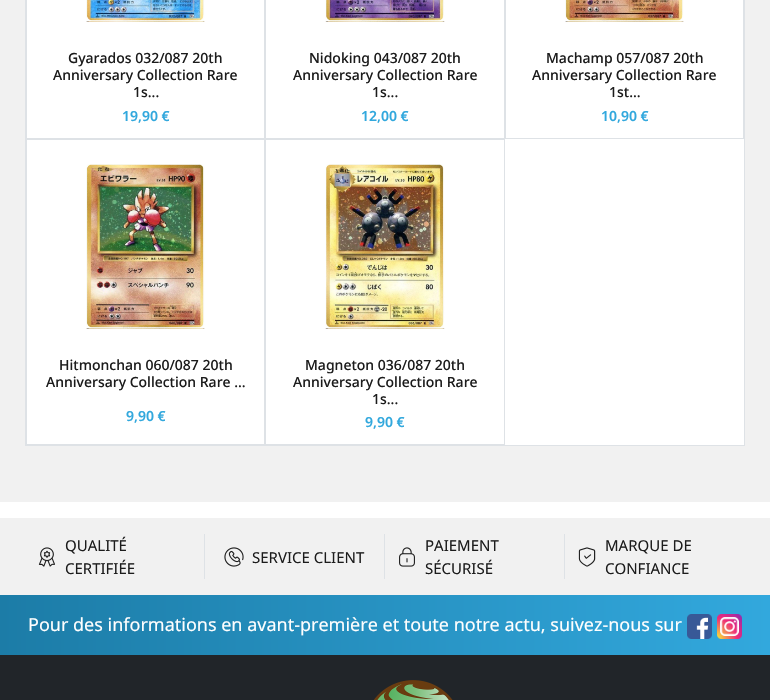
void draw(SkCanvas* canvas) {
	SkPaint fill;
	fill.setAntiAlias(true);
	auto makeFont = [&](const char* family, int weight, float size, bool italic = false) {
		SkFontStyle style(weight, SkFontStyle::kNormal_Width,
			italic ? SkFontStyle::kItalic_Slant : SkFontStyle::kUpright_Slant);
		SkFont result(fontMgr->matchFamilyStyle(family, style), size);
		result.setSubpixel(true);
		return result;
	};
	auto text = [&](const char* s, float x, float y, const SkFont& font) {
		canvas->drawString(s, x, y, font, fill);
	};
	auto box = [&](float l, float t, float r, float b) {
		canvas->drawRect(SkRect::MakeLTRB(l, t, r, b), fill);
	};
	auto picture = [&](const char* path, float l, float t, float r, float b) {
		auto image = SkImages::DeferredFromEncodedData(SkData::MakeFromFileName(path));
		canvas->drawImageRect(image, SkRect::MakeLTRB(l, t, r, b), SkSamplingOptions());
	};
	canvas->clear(0xFFFFFFFF);
	fill.setColor(0xFFF1F1F1);
	box(0, 0, 770, 502);
	fill.setColor(0xFFFFFFFF);
	box(27, 0, 744, 445);
	fill.setStyle(SkPaint::kStroke_Style);
	fill.setStrokeWidth(1);
	fill.setColor(0xFFDEE2E6);
	canvas->drawRect(SkRect::MakeLTRB(25.5f, -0.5f, 744.5f, 445.5f), fill);
	canvas->drawRect(SkRect::MakeLTRB(26.5f, -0.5f, 264.5f, 138.5f), fill);
	picture("image0.png", 86, 0, 205, 22);
	canvas->drawRect(SkRect::MakeLTRB(265.5f, -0.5f, 504.5f, 138.5f), fill);
	picture("image1.png", 325, 0, 445, 22);
	canvas->drawRect(SkRect::MakeLTRB(505.5f, -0.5f, 743.5f, 138.5f), fill);
	picture("image2.png", 565, 0, 684, 22);
	canvas->drawRect(SkRect::MakeLTRB(26.5f, 139.5f, 264.5f, 444.5f), fill);
	picture("image3.png", 86, 164, 205, 329);
	canvas->drawRect(SkRect::MakeLTRB(265.5f, 139.5f, 504.5f, 444.5f), fill);
	picture("image4.png", 325, 164, 445, 329);
	fill.setStyle(SkPaint::kFill_Style);
	fill.setColor(0xFFF1F1F1);
	box(0, 518, 770, 595);
	fill.setColor(0xFFDEE2E6);
	box(204, 534, 205, 579);
	picture("image5.png", 38, 547, 55, 567);
	box(384, 534, 385, 579);
	picture("image6.png", 224, 547, 244, 567);
	box(564, 534, 565, 579);
	picture("image7.png", 399, 547, 415, 567);
	picture("image8.png", 578, 547, 596, 567);
	{
		const SkColor colors[] = {0xFF1C7CA7, 0xFF32A8DD};
		const float stops[] = {0, 1};
		const SkPoint ends[] = {{0, 625}, {770, 625}};
		fill.setShader(SkGradientShader::MakeLinear(ends, colors, stops, 2, SkTileMode::kClamp));
		fill.setAlpha(255);
	}
	box(0, 595, 770, 655);
	picture("image9.png", 687, 614, 712, 639);
	picture("image10.png", 717, 614, 742, 639);
	fill.setShader(nullptr);
	fill.setColor(0xFF212529);
	box(0, 655, 770, 700);
	picture("image11.png", 374, 680, 453, 700);
	auto font1 = makeFont("Noto Sans Ethiopic", 500, 14);
	fill.setColor(0xFF1C1C1C);
	text("Gyarados 032/087 20th", 68, 63, font1);
	text("Anniversary Collection Rare", 53, 80, font1);
	text("1s...", 133, 97, font1);
	auto font2 = makeFont("Noto Sans Ethiopic", 600, 14);
	fill.setColor(0xFF32A8DD);
	text("19,90 €", 122, 121, font2);
	fill.setColor(0xFF1C1C1C);
	text("Nidoking 043/087 20th", 309, 63, font1);
	text("Anniversary Collection Rare", 293, 80, font1);
	text("1s...", 372, 97, font1);
	fill.setColor(0xFF32A8DD);
	text("12,00 €", 361, 121, font2);
	fill.setColor(0xFF1C1C1C);
	text("Machamp 057/087 20th", 546, 63, font1);
	text("Anniversary Collection Rare", 532, 80, font1);
	text("1st...", 609, 97, font1);
	fill.setColor(0xFF32A8DD);
	text("10,90 €", 601, 121, font2);
	fill.setColor(0xFF1C1C1C);
	text("Hitmonchan 060/087 20th", 59, 370, font1);
	text("Anniversary Collection Rare ...", 46, 387, font1);
	fill.setColor(0xFF32A8DD);
	text("9,90 €", 126, 421, font2);
	fill.setColor(0xFF1C1C1C);
	text("Magneton 036/087 20th", 305, 370, font1);
	text("Anniversary Collection Rare", 293, 387, font1);
	text("1s...", 372, 404, font1);
	fill.setColor(0xFF32A8DD);
	text("9,90 €", 365, 427, font2);
	auto font3 = makeFont("Noto Sans Ethiopic", 400, 15);
	fill.setColor(0xFF1C1C1C);
	text("QUALITÉ", 65, 551, font3);
	text("CERTIFIÉE", 65, 574, font3);
	text("SERVICE CLIENT", 252, 563, font3);
	text("PAIEMENT", 425, 551, font3);
	text("SÉCURISÉ", 425, 574, font3);
	text("MARQUE DE", 605, 551, font3);
	text("CONFIANCE", 605, 574, font3);
	auto font4 = makeFont("Noto Sans Ethiopic", 400, 18);
	fill.setColor(0xFFFFFFFF);
	text("Pour des informations en avant-première et toute notre actu, suivez-nous sur", 28, 631, font4);
}
